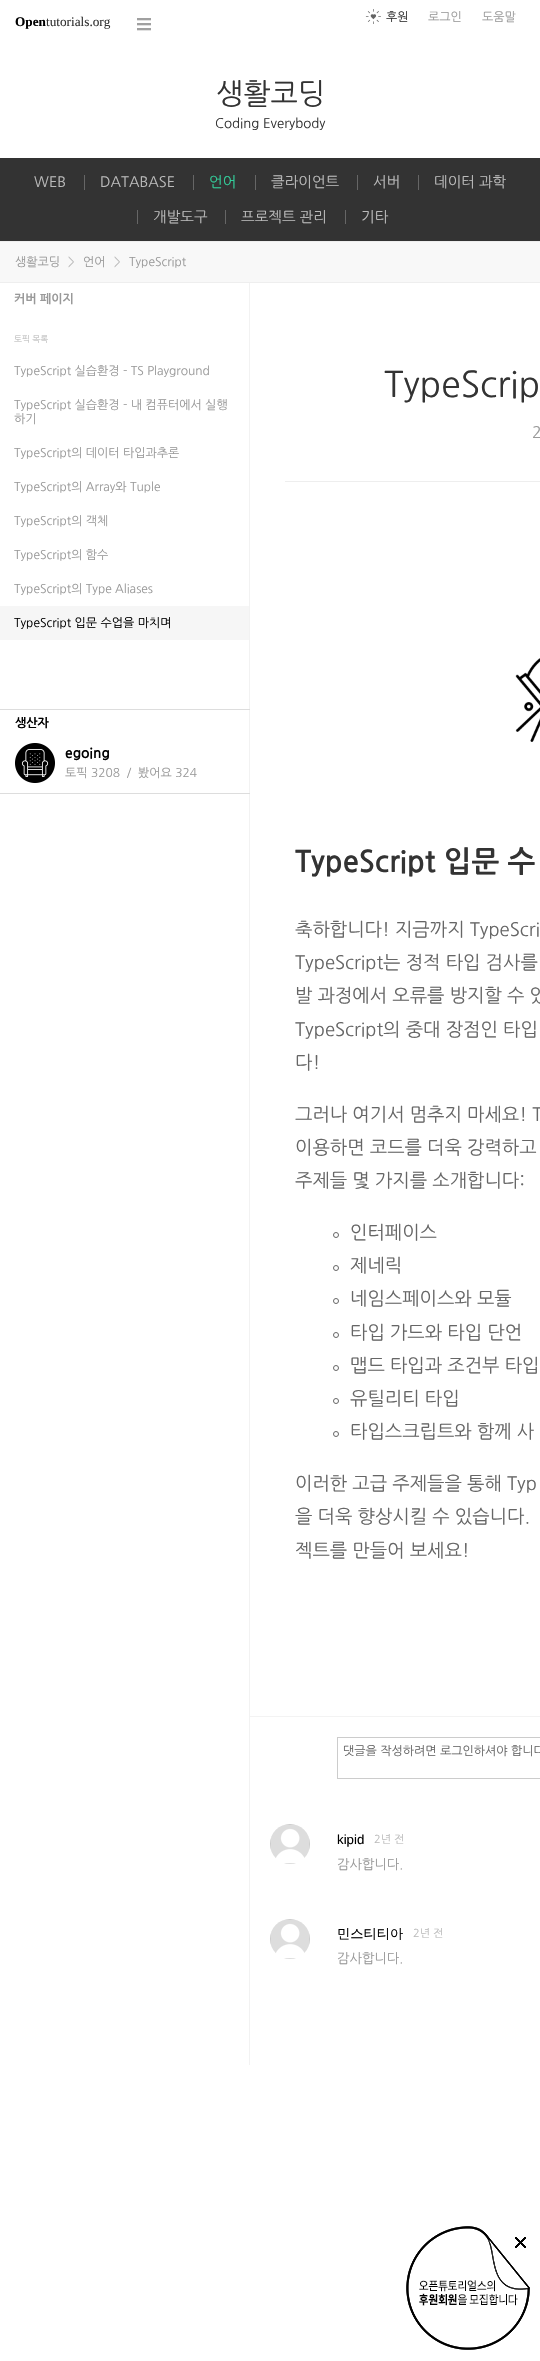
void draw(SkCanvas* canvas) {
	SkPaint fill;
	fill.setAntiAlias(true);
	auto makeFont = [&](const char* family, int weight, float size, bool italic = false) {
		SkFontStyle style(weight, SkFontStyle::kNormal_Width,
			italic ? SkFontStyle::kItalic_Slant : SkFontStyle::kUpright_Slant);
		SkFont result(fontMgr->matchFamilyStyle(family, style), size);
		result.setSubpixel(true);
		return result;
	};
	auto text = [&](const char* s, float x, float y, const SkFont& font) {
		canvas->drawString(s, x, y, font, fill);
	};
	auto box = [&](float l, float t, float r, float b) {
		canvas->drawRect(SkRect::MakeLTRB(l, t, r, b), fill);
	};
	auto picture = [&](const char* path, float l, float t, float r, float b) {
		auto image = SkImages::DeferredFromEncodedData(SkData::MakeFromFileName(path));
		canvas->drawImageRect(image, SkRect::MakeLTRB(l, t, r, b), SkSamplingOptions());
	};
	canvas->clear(0xFFFFFFFF);
	picture("image0.png", 137, 18, 151, 31);
	picture("image1.png", 365, 9, 381, 24);
	fill.setColor(0xFF333333);
	box(0, 158, 540, 241);
	fill.setColor(0xFF666666);
	box(84, 175, 85, 190);
	box(193, 175, 194, 190);
	box(255, 175, 256, 190);
	box(357, 175, 358, 190);
	box(418, 175, 419, 190);
	box(137, 210, 138, 224);
	box(225, 210, 226, 224);
	box(345, 210, 346, 224);
	fill.setColor(0xFFF8F8F8);
	box(0, 242, 540, 282);
	fill.setColor(0xFFEEEEEE);
	box(0, 241, 540, 242);
	box(0, 282, 540, 283);
	fill.setColor(0xFFF2F2F2);
	box(249, 283, 250, 2065);
	fill.setColor(0xFFF6F6F6);
	box(0, 606, 249, 640);
	fill.setColor(0xFFDDDDDD);
	box(0, 709, 250, 710);
	box(0, 793, 250, 794);
	picture("image2.png", 15, 743, 55, 783);
	fill.setColor(0xFFEEEEEE);
	box(285, 481, 540, 482);
	picture("image3.png", 515, 658, 540, 742);
	fill.setStyle(SkPaint::kStroke_Style);
	fill.setStrokeWidth(1);
	fill.setColor(0xFF666666);
	canvas->drawCircle(336, 1235, 2.5f, fill);
	canvas->drawCircle(336, 1268, 2.5f, fill);
	canvas->drawCircle(336, 1301, 2.5f, fill);
	canvas->drawCircle(336, 1335, 2.5f, fill);
	canvas->drawCircle(336, 1368, 2.5f, fill);
	canvas->drawCircle(336, 1401, 2.5f, fill);
	canvas->drawCircle(336, 1434, 2.5f, fill);
	fill.setStyle(SkPaint::kFill_Style);
	fill.setColor(0xFFF3F3F3);
	box(250, 1716, 540, 1717);
	fill.setStyle(SkPaint::kStroke_Style);
	fill.setColor(0xFFCCCCCC);
	canvas->drawRect(SkRect::MakeLTRB(337.5f, 1737.5f, 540.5f, 1778.5f), fill);
	picture("image4.png", 270, 1824, 310, 1864);
	picture("image4.png", 270, 1919, 310, 1959);
	picture("image5.png", 406, 2226, 530, 2350);
	picture("image6.png", 515, 2237, 526, 2248);
	auto font1 = makeFont("Liberation Serif", 700, 13.25f);
	fill.setStyle(SkPaint::kFill_Style);
	fill.setColor(0xFF000000);
	text("Open", 15, 26, font1);
	auto font2 = makeFont("Liberation Serif", 400, 13.25f);
	fill.setColor(0xFF333333);
	text("tutorials.org", 46, 26, font2);
	auto font3 = makeFont("NanumGothic", 400, 12);
	text("후원", 386, 21, font3);
	fill.setColor(0xFF999999);
	text("로그인", 428, 21, font3);
	text("도움말", 482, 21, font3);
	auto font4 = makeFont("NanumGothic", 400, 29);
	fill.setColor(0xFF333333);
	text("생활코딩", 216, 104, font4);
	auto font5 = makeFont("NanumGothic", 400, 13.25f);
	text("Coding Everybody", 215, 128, font5);
	auto font6 = makeFont("NanumGothic", 400, 14.5f);
	fill.setColor(0xFFBBBBBB);
	text("WEB", 34, 187, font6);
	text("DATABASE", 100, 187, font6);
	fill.setColor(0xFF33CC99);
	text("언어", 209, 187, font6);
	fill.setColor(0xFFBBBBBB);
	text("클라이언트", 271, 187, font6);
	text("서버", 373, 187, font6);
	text("데이터 과학", 434, 187, font6);
	text("개발도구", 153, 222, font6);
	text("프로젝트 관리", 241, 222, font6);
	text("기타", 361, 222, font6);
	fill.setColor(0xFF999999);
	text("생활코딩", 15, 266, font3);
	fill.setColor(0xFFBBBBBB);
	text(">", 68, 266, font3);
	fill.setColor(0xFF999999);
	text("언어", 83, 266, font3);
	fill.setColor(0xFFBBBBBB);
	text(">", 114, 266, font3);
	fill.setColor(0xFF999999);
	text("TypeScript", 129, 266, font3);
	auto font7 = makeFont("NanumGothic", 700, 12);
	text("커버 페이지", 14, 303, font7);
	auto font8 = makeFont("NanumGothic", 400, 8.5f);
	fill.setColor(0xFFBBBBBB);
	text("토픽 목록", 14, 342, font8);
	fill.setColor(0xFF999999);
	text("TypeScript 실습환경 - TS Playground", 14, 375, font3);
	text("TypeScript 실습환경 - 내 컴퓨터에서 실행", 14, 409, font3);
	text("하기", 14, 423, font3);
	text("TypeScript의 데이터 타입과추론", 14, 457, font3);
	text("TypeScript의 Array와 Tuple", 14, 491, font3);
	text("TypeScript의 객체", 14, 525, font3);
	text("TypeScript의 함수", 14, 559, font3);
	text("TypeScript의 Type Aliases", 14, 593, font3);
	fill.setColor(0xFF000000);
	text("TypeScript 입문 수업을 마치며", 14, 627, font3);
	text("생산자", 15, 727, font7);
	auto font9 = makeFont("NanumGothic", 700, 14);
	text("egoing", 65, 758, font9);
	fill.setColor(0xFF999999);
	text("토픽 3208  /  봤어요 324", 65, 777, font3);
	auto font10 = makeFont("NanumGothic", 400, 35.5f);
	fill.setColor(0xFF333333);
	text("TypeScrip", 384, 397, font10);
	auto font11 = makeFont("NanumGothic", 400, 16);
	fill.setColor(0xFF999999);
	text("2", 532, 438, font11);
	auto font12 = makeFont("NanumGothic", 700, 29.5f);
	fill.setColor(0xFF333333);
	text("TypeScript 입문 수", 295, 872, font12);
	auto font13 = makeFont("NanumGothic", 400, 18.5f);
	fill.setColor(0xFF666666);
	text("축하합니다! 지금까지 TypeScri", 295, 936, font13);
	text("TypeScript는 정적 타입 검사를", 295, 969, font13);
	text("발 과정에서 오류를 방지할 수 있", 295, 1002, font13);
	text("TypeScript의 중대 장점인 타입", 295, 1036, font13);
	text("다!", 295, 1069, font13);
	text("그러나 여기서 멈추지 마세요! T", 295, 1121, font13);
	text("이용하면 코드를 더욱 강력하고", 295, 1154, font13);
	text("주제들 몇 가지를 소개합니다:", 295, 1187, font13);
	text("인터페이스", 350, 1239, font13);
	text("제네릭", 350, 1272, font13);
	text("네임스페이스와 모듈", 350, 1305, font13);
	text("타입 가드와 타입 단언", 350, 1339, font13);
	text("맵드 타입과 조건부 타입", 350, 1372, font13);
	text("유틸리티 타입", 350, 1405, font13);
	text("타입스크립트와 함께 사", 350, 1438, font13);
	text("이러한 고급 주제들을 통해 Typ", 295, 1490, font13);
	text("을 더욱 향상시킬 수 있습니다.", 295, 1523, font13);
	text("젝트를 만들어 보세요!", 295, 1557, font13);
	text("댓글을 작성하려면 로그인하셔야 합니다", 343, 1755, font3);
	auto font14 = makeFont("Liberation Sans", 400, 13.25f);
	fill.setColor(0xFF000000);
	text("kipid", 337, 1844, font14);
	auto font15 = makeFont("NanumGothic", 400, 11);
	fill.setColor(0xFFBBBBBB);
	text("2년 전", 374, 1843, font15);
	fill.setColor(0xFF999999);
	text("감사합니다.", 337, 1869, font5);
	auto font16 = makeFont("WenQuanYi Zen Hei", 500, 13.25f);
	fill.setColor(0xFF000000);
	text("민스티티아", 337, 1938, font16);
	fill.setColor(0xFFBBBBBB);
	text("2년 전", 413, 1937, font15);
	fill.setColor(0xFF999999);
	text("감사합니다.", 337, 1963, font5);
}
